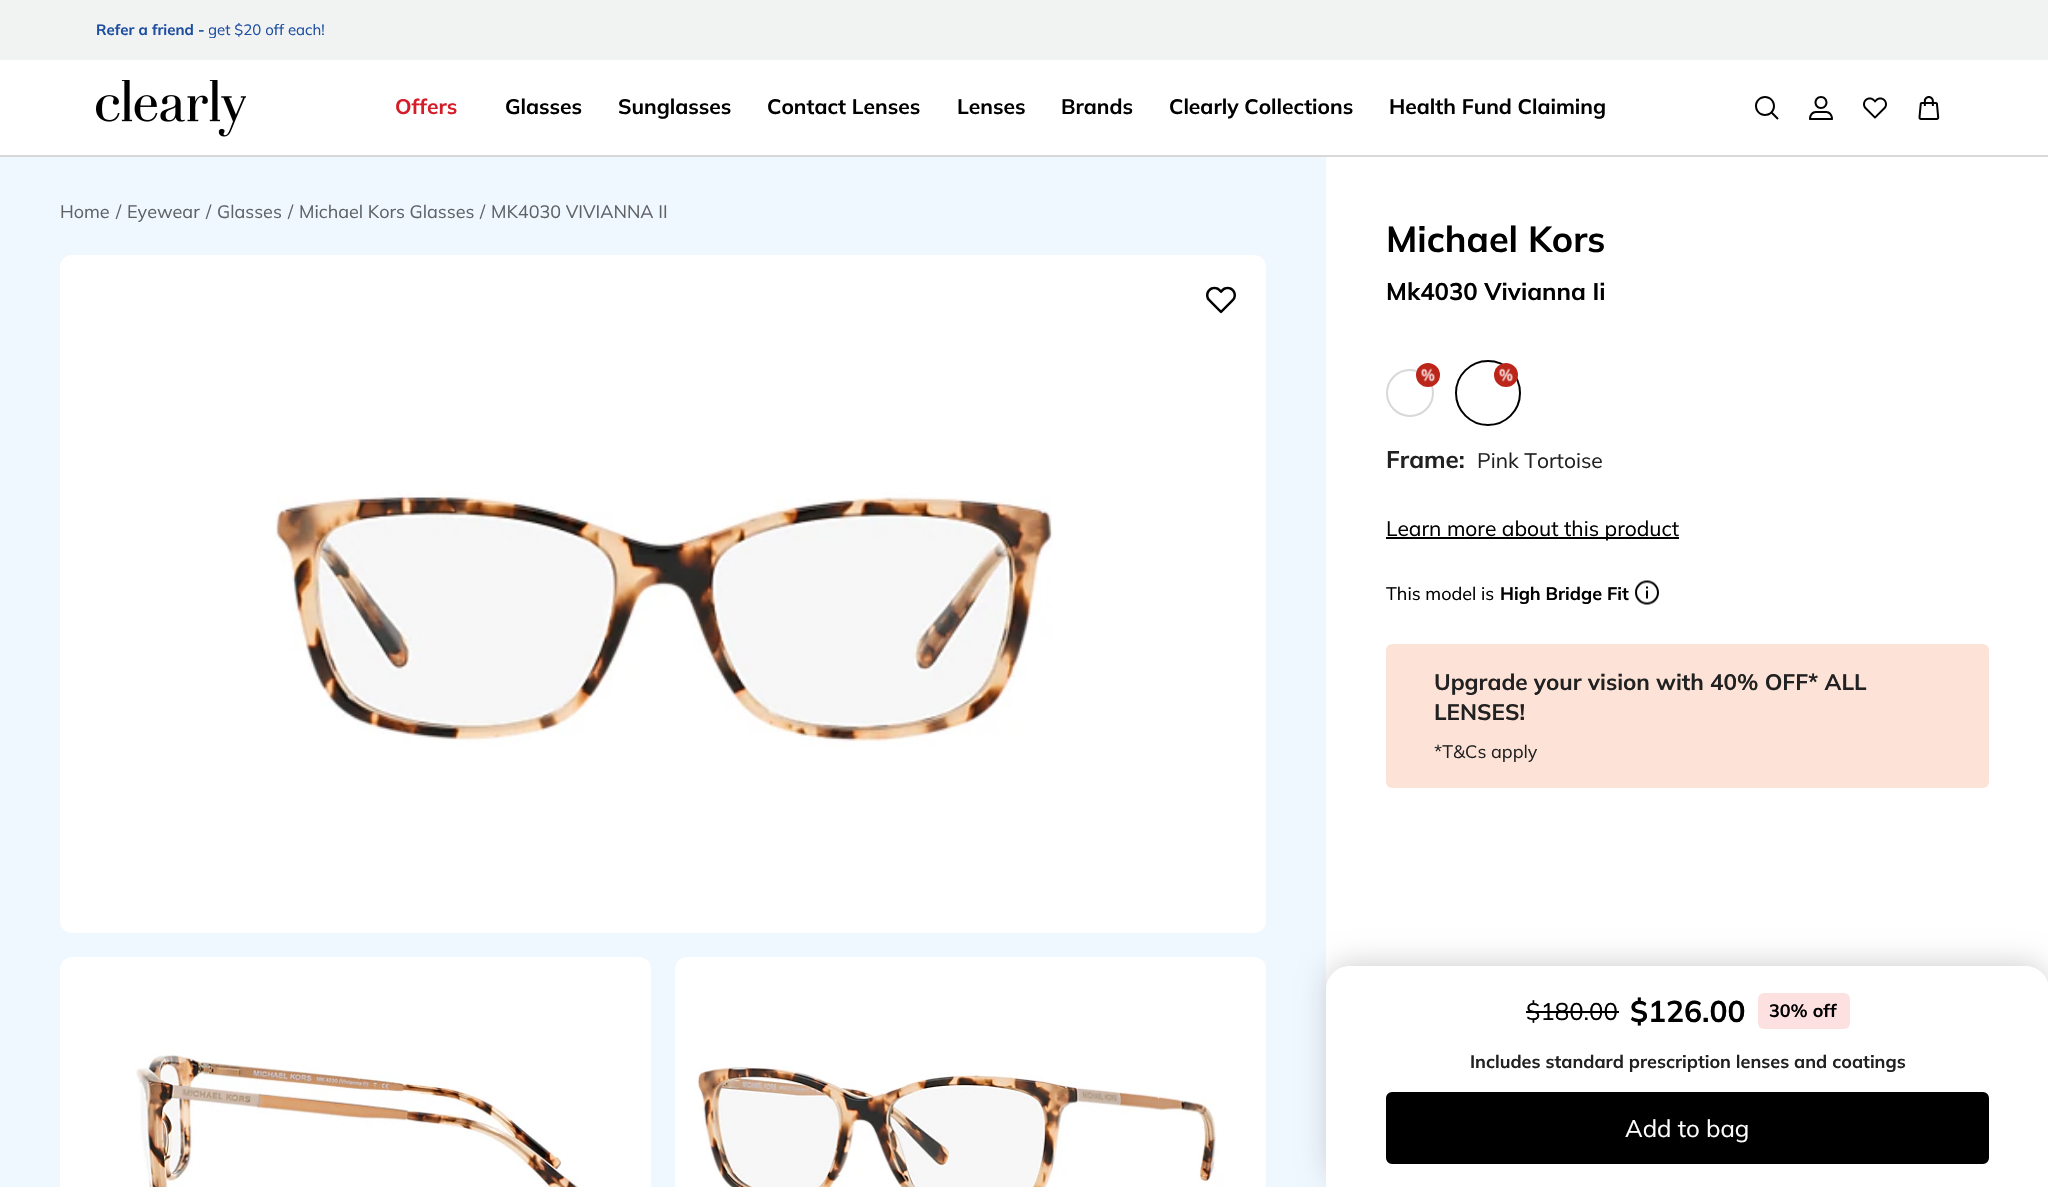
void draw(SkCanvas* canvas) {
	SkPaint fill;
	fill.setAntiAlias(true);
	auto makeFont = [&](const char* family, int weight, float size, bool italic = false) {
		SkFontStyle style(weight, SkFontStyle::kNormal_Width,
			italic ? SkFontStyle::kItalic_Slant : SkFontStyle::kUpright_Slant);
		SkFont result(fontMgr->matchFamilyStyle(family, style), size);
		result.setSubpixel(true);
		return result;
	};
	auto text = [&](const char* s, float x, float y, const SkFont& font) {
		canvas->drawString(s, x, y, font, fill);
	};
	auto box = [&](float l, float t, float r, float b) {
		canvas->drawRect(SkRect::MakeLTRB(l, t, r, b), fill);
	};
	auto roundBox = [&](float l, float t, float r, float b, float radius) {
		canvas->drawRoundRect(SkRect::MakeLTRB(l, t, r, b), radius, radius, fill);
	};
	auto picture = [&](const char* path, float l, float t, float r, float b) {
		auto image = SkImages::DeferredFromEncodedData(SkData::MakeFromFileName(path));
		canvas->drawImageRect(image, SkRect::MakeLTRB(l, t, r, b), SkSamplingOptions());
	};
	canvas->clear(0xFFFFFFFF);
	fill.setColor(0xFFF1F2F2);
	box(0, 0, 2048, 60);
	fill.setColor(0xFFD8D8D8);
	box(0, 155, 2048, 157);
	picture("image0.png", 96, 80, 246, 137);
	picture("image1.png", 1755, 96, 1779, 120);
	picture("image2.png", 1809, 96, 1833, 120);
	picture("image3.png", 1863, 97, 1887, 119);
	picture("image4.png", 1918, 96, 1940, 120);
	fill.setColor(0xFFF0F8FF);
	box(0, 157, 1326, 1187);
	fill.setColor(0xFFFFFFFF);
	roundBox(60, 255, 1266, 933, 12);
	picture("image5.png", 274, 490, 1053, 747);
	picture("image6.png", 1206, 286, 1236, 314);
	canvas->drawPath(SkPathBuilder().moveTo(72, 957).lineTo(639, 957).cubicTo(645.5f, 957, 651, 962.5f, 651, 969).lineTo(651, 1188).lineTo(60, 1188).lineTo(60, 969).cubicTo(60, 962.5f, 65.5f, 957, 72, 957).close().detach(), fill);
	picture("image7.png", 63, 960, 650, 1187);
	canvas->drawPath(SkPathBuilder().moveTo(687, 957).lineTo(1254, 957).cubicTo(1260.5f, 957, 1266, 962.5f, 1266, 969).lineTo(1266, 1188).lineTo(675, 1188).lineTo(675, 969).cubicTo(675, 962.5f, 680.5f, 957, 687, 957).close().detach(), fill);
	picture("image8.png", 678, 960, 1265, 1187);
	fill.setStyle(SkPaint::kStroke_Style);
	fill.setStrokeWidth(2);
	fill.setColor(0xFFD8D8D8);
	canvas->drawCircle(1410, 393, 23, fill);
	fill.setStyle(SkPaint::kFill_Style);
	fill.setColor(0xFFBB251A);
	canvas->drawCircle(1428, 375, 12, fill);
	picture("image9.png", 1421, 368, 1435, 382);
	fill.setStyle(SkPaint::kStroke_Style);
	fill.setColor(0xFF000000);
	canvas->drawCircle(1488, 393, 32, fill);
	fill.setStyle(SkPaint::kFill_Style);
	fill.setColor(0xFFBB251A);
	canvas->drawCircle(1506, 375, 12, fill);
	picture("image9.png", 1499, 368, 1513, 382);
	fill.setColor(0xFF000000);
	box(1386, 537, 1679, 539);
	picture("image10.png", 1635, 580, 1659, 605);
	fill.setColor(0xFFFDE3D7);
	roundBox(1386, 644, 1989, 788, 6);
	fill.setColor(0x33000000);
	fill.setMaskFilter(SkMaskFilter::MakeBlur(kNormal_SkBlurStyle, 15));
	canvas->drawRoundRect(SkRect::MakeLTRB(1329, 965, 2046, 1181), 21, 21, fill);
	fill.setMaskFilter(nullptr);
	fill.setColor(0xFFFFFFFF);
	canvas->drawPath(SkPathBuilder().moveTo(1350, 966).lineTo(2025, 966).cubicTo(2038.5f, 966, 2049, 976.5f, 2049, 990).lineTo(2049, 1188).lineTo(1326, 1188).lineTo(1326, 990).cubicTo(1326, 976.5f, 1336.5f, 966, 1350, 966).close().detach(), fill);
	fill.setColor(0xFF000000);
	box(1526, 1011, 1619, 1013);
	fill.setColor(0xFFFDE1E1);
	roundBox(1758, 993, 1850, 1029, 6);
	fill.setColor(0xFF000000);
	canvas->drawRoundRect(SkRect::MakeLTRB(1387, 1093, 1988, 1163), 5, 5, fill);
	fill.setStyle(SkPaint::kStroke_Style);
	canvas->drawRoundRect(SkRect::MakeLTRB(1387, 1093, 1988, 1163), 5, 5, fill);
	auto font1 = makeFont("Mulish", 700, 15);
	fill.setStyle(SkPaint::kFill_Style);
	fill.setColor(0xFF1C4DA1);
	text("Refer a friend -", 96, 35, font1);
	canvas->save();
	canvas->clipRect(SkRect::MakeLTRB(209, 23, 326, 38));
	auto font2 = makeFont("Mulish", 400, 15);
	text("get $20 off each!", 208, 35, font2);
	canvas->restore();
	auto font3 = makeFont("Mulish", 700, 21);
	fill.setColor(0xFFD51C29);
	text("Offers", 395, 114, font3);
	fill.setColor(0xFF000000);
	text("Glasses", 505, 114, font3);
	text("Sunglasses", 618, 114, font3);
	text("Contact Lenses", 767, 114, font3);
	text("Lenses", 957, 114, font3);
	text("Brands", 1061, 114, font3);
	text("Clearly Collections", 1169, 114, font3);
	text("Health Fund Claiming", 1389, 114, font3);
	auto font4 = makeFont("Mulish", 400, 18);
	fill.setColor(0xFF606366);
	text("Home", 60, 218, font4);
	text("/", 116, 218, font4);
	text("Eyewear", 127, 218, font4);
	text("/", 206, 218, font4);
	text("Glasses", 217, 218, font4);
	text("/", 288, 218, font4);
	text("Michael Kors Glasses", 299, 218, font4);
	text("/", 480, 218, font4);
	text("MK4030 VIVIANNA II", 491, 218, font4);
	auto font5 = makeFont("Mulish", 700, 36);
	fill.setColor(0xFF000000);
	text("Michael Kors", 1386, 252, font5);
	auto font6 = makeFont("Mulish", 700, 24);
	text("Mk4030 Vivianna Ii", 1386, 300, font6);
	fill.setColor(0xFF212121);
	text("Frame:", 1386, 468, font6);
	auto font7 = makeFont("Mulish", 400, 21);
	text("Pink Tortoise", 1477, 468, font7);
	fill.setColor(0xFF000000);
	text("Learn more about this product", 1386, 536, font7);
	text("This model is", 1386, 600, font4);
	auto font8 = makeFont("Mulish", 700, 18);
	text("High Bridge Fit", 1500, 600, font8);
	auto font9 = makeFont("Mulish", 700, 22.5f);
	fill.setColor(0xFF212121);
	text("Upgrade your vision with 40% OFF* ALL", 1434, 690, font9);
	text("LENSES!", 1434, 720, font9);
	text("*T&Cs apply", 1434, 758, font4);
	auto font10 = makeFont("Mulish", 400, 24);
	fill.setColor(0xFF000000);
	text("$180.00", 1526, 1020, font10);
	auto font11 = makeFont("Mulish", 700, 30);
	text("$126.00", 1630, 1022, font11);
	text("30% off", 1769, 1017, font8);
	fill.setColor(0xFF212121);
	text("Includes standard prescription lenses and coatings", 1470, 1068, font8);
	fill.setColor(0xFFFFFFFF);
	text("Add to bag", 1625, 1137, font10);
}
